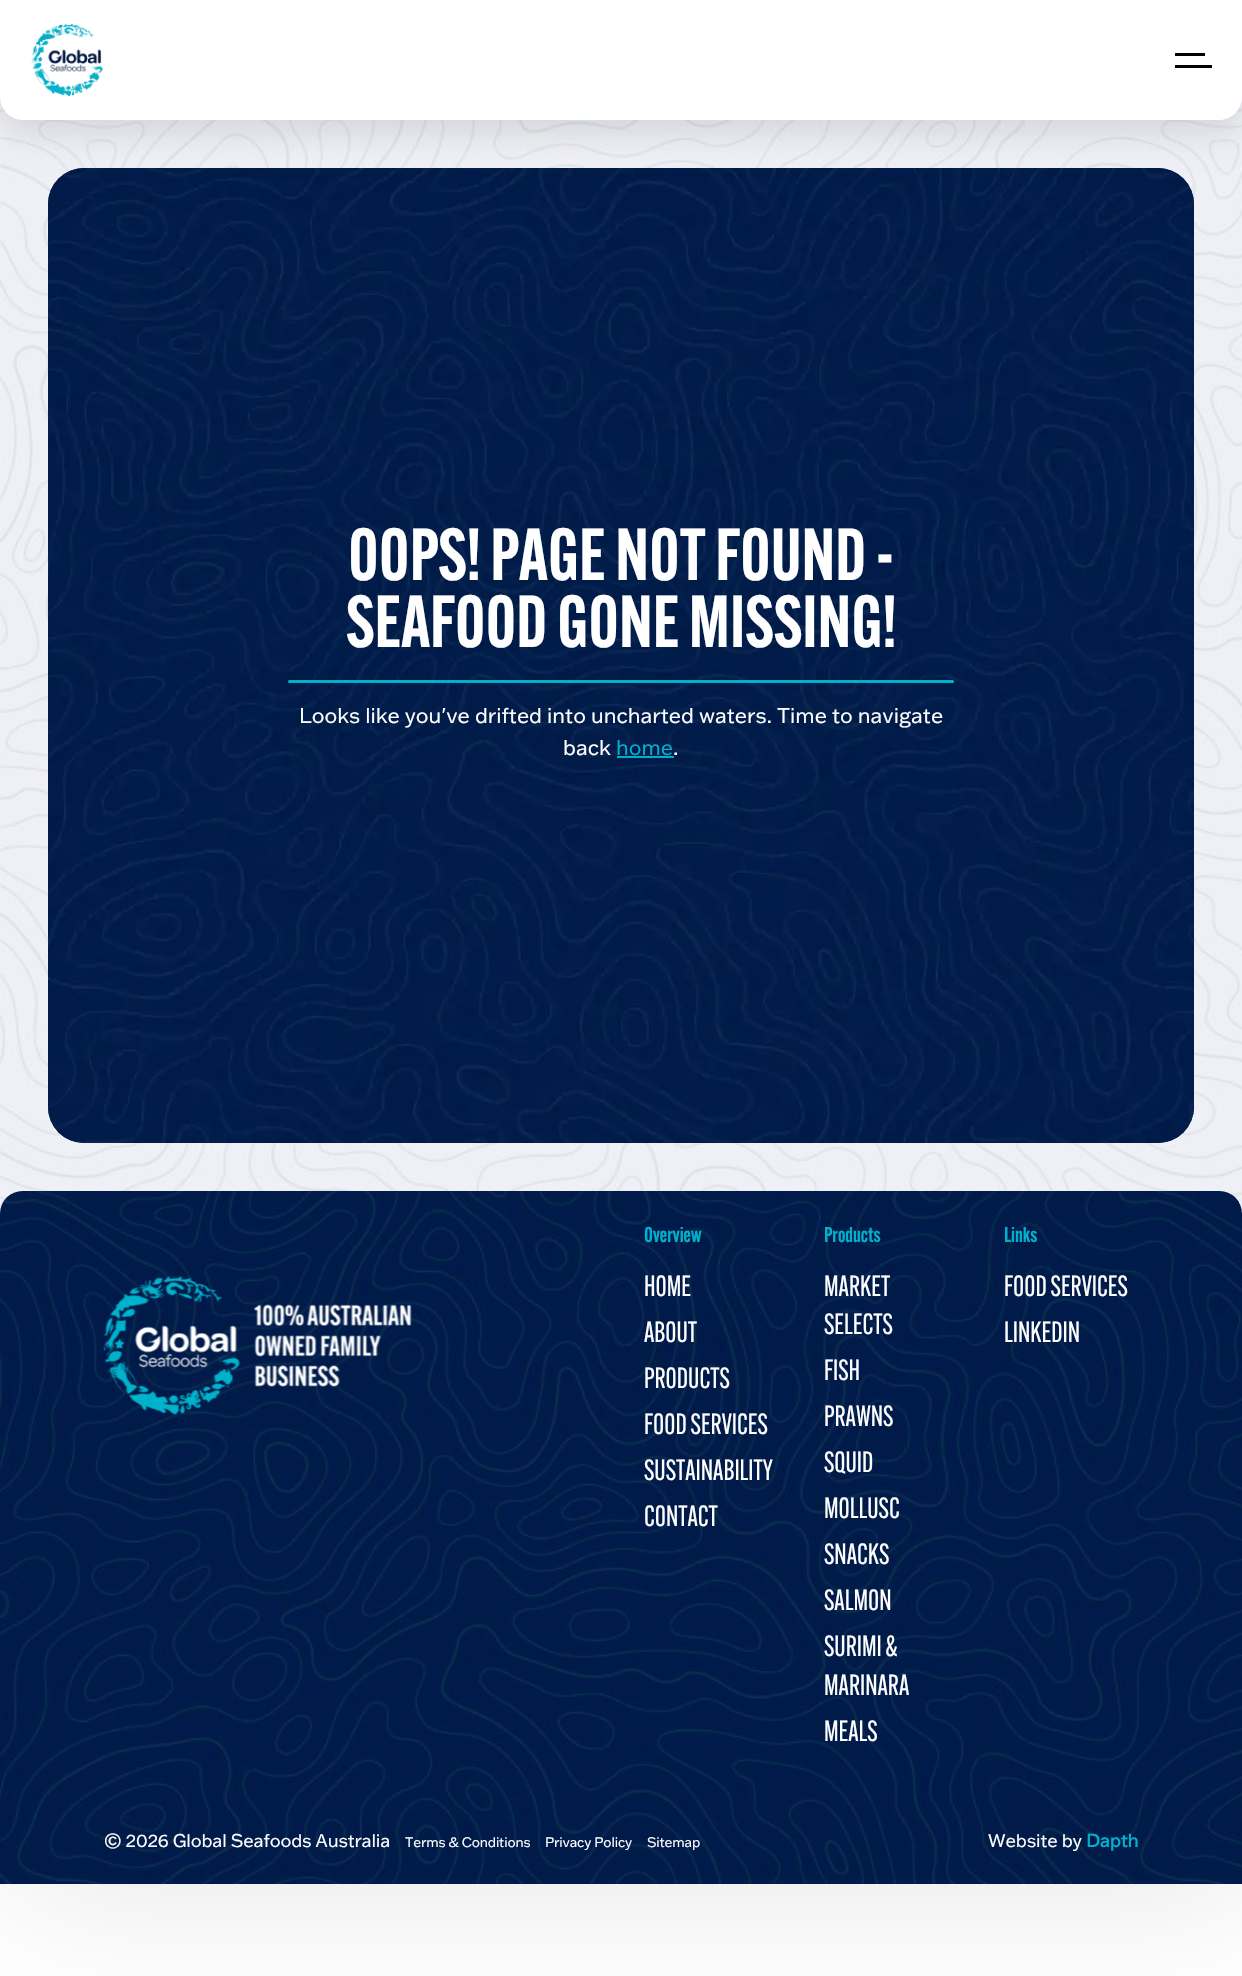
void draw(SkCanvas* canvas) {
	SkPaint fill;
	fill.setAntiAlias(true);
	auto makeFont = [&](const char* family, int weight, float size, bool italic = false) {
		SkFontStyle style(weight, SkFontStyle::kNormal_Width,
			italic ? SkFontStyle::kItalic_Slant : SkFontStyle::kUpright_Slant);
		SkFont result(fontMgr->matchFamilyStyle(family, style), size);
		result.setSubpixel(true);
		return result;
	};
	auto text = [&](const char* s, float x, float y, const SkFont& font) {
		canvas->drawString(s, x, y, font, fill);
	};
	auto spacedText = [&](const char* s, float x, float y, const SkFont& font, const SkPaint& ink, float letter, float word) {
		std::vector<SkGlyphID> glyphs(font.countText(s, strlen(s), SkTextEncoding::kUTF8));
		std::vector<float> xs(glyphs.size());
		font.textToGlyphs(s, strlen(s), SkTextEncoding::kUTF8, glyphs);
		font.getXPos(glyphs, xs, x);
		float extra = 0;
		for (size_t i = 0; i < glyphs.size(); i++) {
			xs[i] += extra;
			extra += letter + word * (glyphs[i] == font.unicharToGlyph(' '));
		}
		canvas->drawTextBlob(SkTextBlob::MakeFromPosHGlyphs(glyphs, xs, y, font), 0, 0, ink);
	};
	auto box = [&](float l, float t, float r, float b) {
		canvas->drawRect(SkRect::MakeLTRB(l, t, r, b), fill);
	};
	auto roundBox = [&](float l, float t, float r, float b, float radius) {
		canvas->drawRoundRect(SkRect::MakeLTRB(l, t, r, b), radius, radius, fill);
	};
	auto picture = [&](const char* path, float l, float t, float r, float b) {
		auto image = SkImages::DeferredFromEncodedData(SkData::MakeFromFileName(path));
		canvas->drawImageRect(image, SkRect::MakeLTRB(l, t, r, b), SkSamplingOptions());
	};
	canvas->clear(0xFFFFFFFF);
	fill.setColor(0x1A000000);
	fill.setMaskFilter(SkMaskFilter::MakeBlur(kNormal_SkBlurStyle, 75));
	canvas->drawRect(SkRect::MakeLTRB(15, 0, 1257, 1884), fill);
	fill.setMaskFilter(nullptr);
	picture("image0.png", 0, 97, 1242, 1214);
	fill.setColor(0xFF001B49);
	roundBox(48, 168, 1194, 1143, 36);
	picture("image2.png", 48, 168, 1194, 1143);
	fill.setColor(0x1A000000);
	fill.setMaskFilter(SkMaskFilter::MakeBlur(kNormal_SkBlurStyle, 15));
	canvas->drawRoundRect(SkRect::MakeLTRB(0, 15, 1242, 135), 23, 23, fill);
	fill.setMaskFilter(nullptr);
	fill.setColor(0xFFFFFFFF);
	canvas->drawPath(SkPathBuilder().moveTo(0, 0).lineTo(1242, 0).lineTo(1242, 97).cubicTo(1242, 109.5f, 1231.5f, 120, 1219, 120).lineTo(23, 120).cubicTo(10.5f, 120, 0, 109.5f, 0, 97).close().detach(), fill);
	picture("image1.png", 31, 24, 103, 96);
	fill.setColor(0xFF000000);
	box(1175, 53, 1205, 56);
	box(1175, 65, 1212, 68);
	fill.setColor(0xFF00B1CC);
	roundBox(288, 680, 954, 683, 1.5f);
	box(617, 756, 674, 758);
	picture("image3.png", 0, 1191, 1242, 1884);
	picture("image4.png", 103, 1276, 412, 1415);
	auto font1 = makeFont("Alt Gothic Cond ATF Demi", 600, 72);
	fill.setColor(0xFFFFFFFF);
	text("OOPS! PAGE NOT FOUND -", 348, 580, font1);
	text("SEAFOOD GONE MISSING!", 346, 647, font1);
	auto font2 = makeFont("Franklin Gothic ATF", 400, 21);
	text("Looks like you've drifted into uncharted waters. Time to navigate", 299, 723, font2);
	text("back", 563, 755, font2);
	fill.setColor(0xFF00B1CC);
	text("home", 616, 755, font2);
	fill.setColor(0xFFFFFFFF);
	text(".", 673, 755, font2);
	auto font3 = makeFont("Alt Gothic Cond ATF Demi", 600, 21);
	fill.setColor(0xFF00B1CC);
	text("Overview", 644, 1242, font3);
	auto font4 = makeFont("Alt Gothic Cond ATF", 400, 28.5f);
	fill.setColor(0xFFFFFFFF);
	text("HOME", 644, 1296, font4);
	text("ABOUT", 644, 1342, font4);
	text("PRODUCTS", 644, 1388, font4);
	text("FOOD SERVICES", 644, 1434, font4);
	text("SUSTAINABILITY", 644, 1480, font4);
	text("CONTACT", 644, 1526, font4);
	fill.setColor(0xFF00B1CC);
	text("Products", 824, 1242, font3);
	fill.setColor(0xFFFFFFFF);
	text("MARKET", 824, 1296, font4);
	text("SELECTS", 824, 1334, font4);
	text("FISH", 824, 1380, font4);
	text("PRAWNS", 824, 1426, font4);
	text("SQUID", 824, 1472, font4);
	text("MOLLUSC", 824, 1518, font4);
	text("SNACKS", 824, 1564, font4);
	text("SALMON", 824, 1610, font4);
	text("SURIMI &", 824, 1656, font4);
	text("MARINARA", 824, 1695, font4);
	text("MEALS", 824, 1741, font4);
	fill.setColor(0xFF00B1CC);
	text("Links", 1004, 1242, font3);
	fill.setColor(0xFFFFFFFF);
	text("FOOD SERVICES", 1004, 1296, font4);
	text("LINKEDIN", 1004, 1342, font4);
	auto font5 = makeFont("Franklin Gothic ATF", 400, 18);
	spacedText("© 2026 Global Seafoods Australia", 104, 1847, font5, fill, -0.15f, 0);
	auto font6 = makeFont("Franklin Gothic ATF", 400, 13.5f);
	spacedText("Terms & Conditions", 405, 1847, font6, fill, -0.15f, 0);
	spacedText("Privacy Policy", 545, 1847, font6, fill, -0.15f, 0);
	spacedText("Sitemap", 647, 1847, font6, fill, -0.15f, 0);
	spacedText("Website by", 988, 1847, font5, fill, -0.15f, 0);
	auto font7 = makeFont("Franklin Gothic ATF", 700, 18);
	fill.setColor(0xFF00B1CC);
	spacedText("Dapth", 1086, 1847, font7, fill, -0.15f, 0);
}
